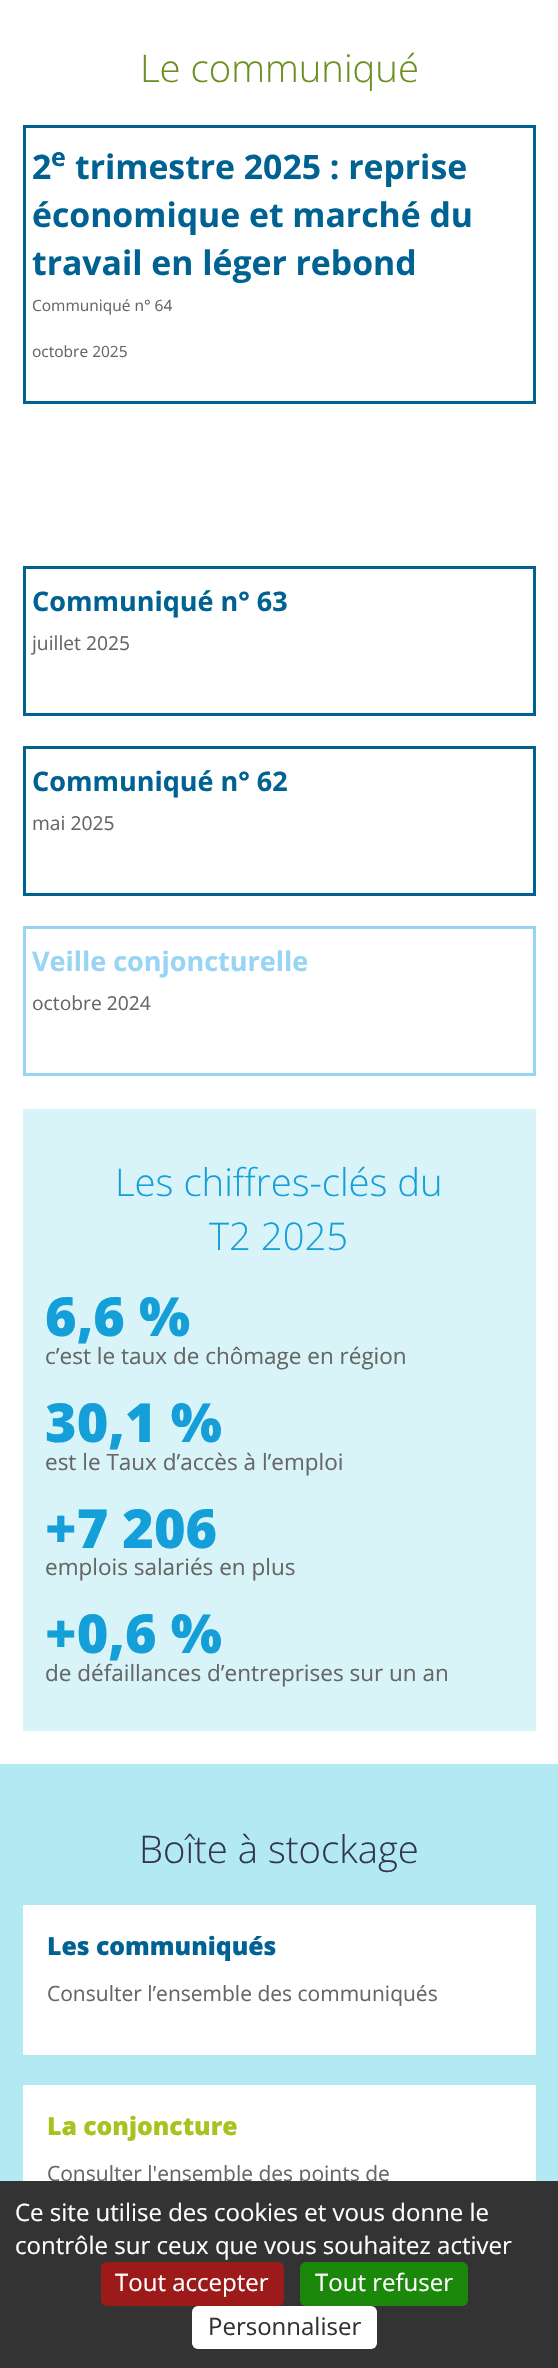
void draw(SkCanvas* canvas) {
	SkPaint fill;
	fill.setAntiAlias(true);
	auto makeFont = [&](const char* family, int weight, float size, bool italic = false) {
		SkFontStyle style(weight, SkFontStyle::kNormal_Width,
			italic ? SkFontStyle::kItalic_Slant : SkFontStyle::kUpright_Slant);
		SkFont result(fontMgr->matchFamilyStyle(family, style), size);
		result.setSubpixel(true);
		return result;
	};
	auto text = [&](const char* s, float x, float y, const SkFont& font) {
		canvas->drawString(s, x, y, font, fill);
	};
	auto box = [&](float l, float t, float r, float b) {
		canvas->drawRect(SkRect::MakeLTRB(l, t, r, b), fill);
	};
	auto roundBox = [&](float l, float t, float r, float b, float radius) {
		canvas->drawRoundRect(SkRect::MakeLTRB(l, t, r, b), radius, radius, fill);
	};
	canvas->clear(0xFFFFFFFF);
	fill.setStyle(SkPaint::kStroke_Style);
	fill.setStrokeWidth(3);
	fill.setColor(0xFF006292);
	canvas->drawRect(SkRect::MakeLTRB(24.5f, 126.5f, 534.5f, 402.5f), fill);
	canvas->drawRect(SkRect::MakeLTRB(24.5f, 567.5f, 534.5f, 714.5f), fill);
	canvas->drawRect(SkRect::MakeLTRB(24.5f, 747.5f, 534.5f, 894.5f), fill);
	fill.setColor(0xFF98D4F4);
	canvas->drawRect(SkRect::MakeLTRB(24.5f, 927.5f, 534.5f, 1074.5f), fill);
	fill.setStyle(SkPaint::kFill_Style);
	fill.setColor(0xFFD9F4F9);
	box(23, 1109, 536, 1731);
	fill.setColor(0xFFB2E9F3);
	box(0, 1764, 558, 2181);
	fill.setColor(0xFFFFFFFF);
	box(23, 1905, 536, 2055);
	box(23, 2085, 536, 2181);
	auto font1 = makeFont("Open Sans", 300, 38.25f);
	fill.setColor(0xFF6B9021);
	text("Le communiqué", 140, 82, font1);
	auto font2 = makeFont("Open Sans", 700, 33.75f);
	fill.setColor(0xFF006292);
	text("2", 32, 179, font2);
	auto font3 = makeFont("Open Sans", 700, 25);
	text("e", 51, 166, font3);
	text("trimestre 2025 : reprise", 75, 179, font2);
	text("économique et marché du", 32, 227, font2);
	text("travail en léger rebond", 32, 275, font2);
	auto font4 = makeFont("Open Sans", 400, 15.5f);
	fill.setColor(0xFF666666);
	text("Communiqué n° 64", 32, 311, font4);
	text("octobre 2025", 32, 357, font4);
	auto font5 = makeFont("Open Sans", 700, 27);
	fill.setColor(0xFF006292);
	text("Communiqué n° 63", 32, 611, font5);
	auto font6 = makeFont("Open Sans", 400, 19.25f);
	fill.setColor(0xFF666666);
	text("juillet 2025", 32, 650, font6);
	fill.setColor(0xFF006292);
	text("Communiqué n° 62", 32, 791, font5);
	fill.setColor(0xFF666666);
	text("mai 2025", 32, 830, font6);
	fill.setColor(0xFF98D4F4);
	text("Veille conjoncturelle", 32, 971, font5);
	fill.setColor(0xFF666666);
	text("octobre 2024", 32, 1010, font6);
	fill.setColor(0xFF159FD9);
	text("Les chiffres-clés du", 115, 1196, font1);
	text("T2 2025", 209, 1250, font1);
	auto font7 = makeFont("Open Sans", 800, 54);
	text("6,6 %", 45, 1336, font7);
	auto font8 = makeFont("Open Sans", 400, 22.5f);
	fill.setColor(0xFF666666);
	text("c’est le taux de chômage en région", 45, 1364, font8);
	fill.setColor(0xFF159FD9);
	text("30,1 %", 45, 1442, font7);
	fill.setColor(0xFF666666);
	text("est le Taux d’accès à l’emploi", 45, 1470, font8);
	fill.setColor(0xFF159FD9);
	text("+7 206", 45, 1548, font7);
	fill.setColor(0xFF666666);
	text("emplois salariés en plus", 45, 1575, font8);
	fill.setColor(0xFF159FD9);
	text("+0,6 %", 45, 1653, font7);
	fill.setColor(0xFF666666);
	text("de défaillances d’entreprises sur un an", 45, 1681, font8);
	fill.setColor(0xFF33364F);
	text("Boîte à stockage", 139, 1863, font1);
	auto font9 = makeFont("Open Sans", 800, 24.75f);
	fill.setColor(0xFF006292);
	text("Les communiqués", 47, 1955, font9);
	auto font10 = makeFont("Open Sans", 400, 21);
	fill.setColor(0xFF666666);
	text("Consulter l’ensemble des communiqués", 47, 2001, font10);
	fill.setColor(0xFFA8C220);
	text("La conjoncture", 47, 2135, font9);
	fill.setColor(0xFF666666);
	text("Consulter l'ensemble des points de", 47, 2181, font10);
	fill.setColor(0xFF333333);
	box(0, 2181, 558, 2368);
	auto font11 = makeFont("Open Sans", 400, 24);
	fill.setColor(0xFFFFFFFF);
	text("Ce site utilise des cookies et vous donne le", 15, 2221, font11);
	text("contrôle sur ceux que vous souhaitez activer", 15, 2254, font11);
	fill.setColor(0xFF9C1A1A);
	roundBox(101, 2262, 284, 2306, 6);
	fill.setColor(0xFFFFFFFF);
	text("Tout accepter", 115, 2291, font11);
	fill.setColor(0xFF1B870B);
	roundBox(300, 2262, 468, 2306, 6);
	fill.setColor(0xFFFFFFFF);
	text("Tout refuser", 315, 2291, font11);
	roundBox(192, 2306, 377, 2349, 6);
	fill.setColor(0xFF333333);
	text("Personnaliser", 208, 2335, font11);
}
